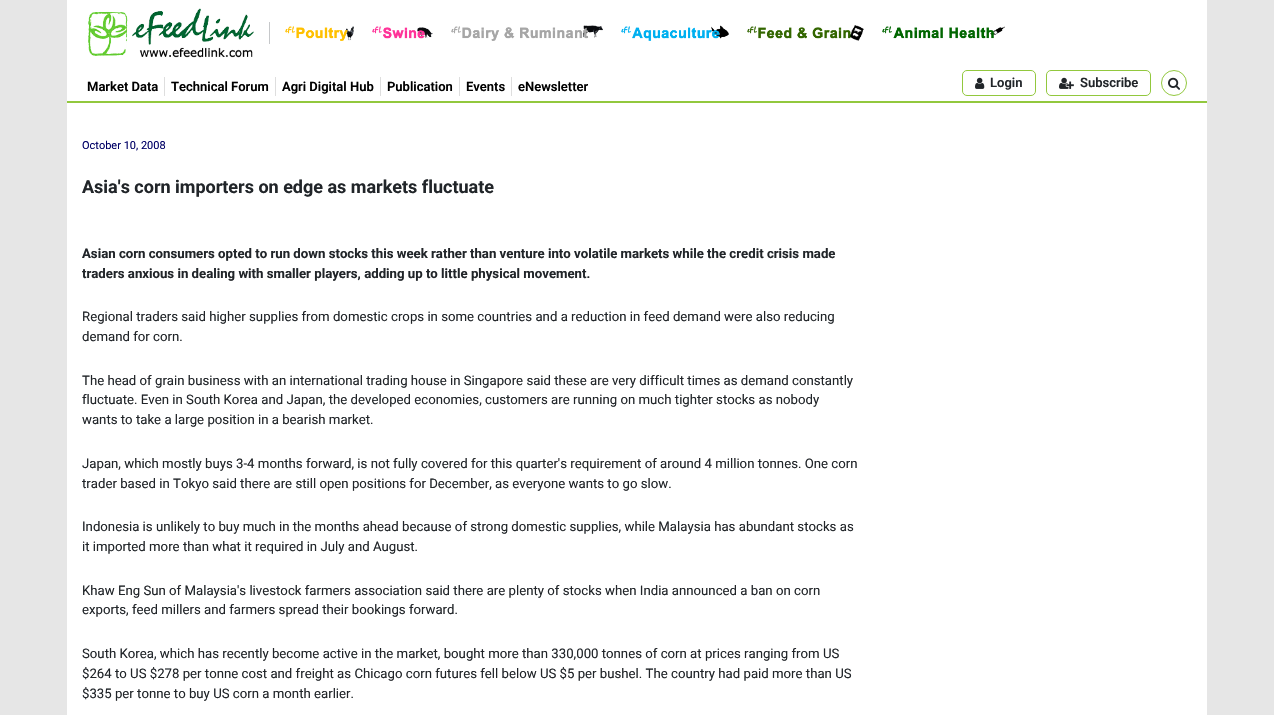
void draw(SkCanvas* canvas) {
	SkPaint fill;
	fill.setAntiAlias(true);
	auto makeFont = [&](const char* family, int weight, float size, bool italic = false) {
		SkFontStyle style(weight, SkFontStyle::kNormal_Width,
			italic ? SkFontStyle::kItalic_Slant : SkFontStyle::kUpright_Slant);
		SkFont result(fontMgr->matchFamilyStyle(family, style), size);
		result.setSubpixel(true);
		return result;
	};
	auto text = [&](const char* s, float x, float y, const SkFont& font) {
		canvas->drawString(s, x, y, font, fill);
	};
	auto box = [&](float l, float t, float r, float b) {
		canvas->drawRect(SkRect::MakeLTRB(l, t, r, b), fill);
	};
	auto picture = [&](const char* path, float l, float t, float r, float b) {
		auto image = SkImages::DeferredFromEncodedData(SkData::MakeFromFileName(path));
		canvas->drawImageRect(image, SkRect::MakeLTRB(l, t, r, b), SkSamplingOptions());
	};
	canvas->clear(0xFFE6E6E6);
	fill.setColor(0xFFFFFFFF);
	box(67, 0, 1207, 101);
	picture("image0.png", 88, 8, 254, 58);
	fill.setColor(0xFFC6C8CA);
	box(269, 22, 270, 44);
	picture("image1.png", 285, 26, 354, 41);
	picture("image2.png", 372, 26, 433, 39);
	picture("image3.png", 451, 25, 603, 41);
	picture("image4.png", 621, 25, 729, 41);
	picture("image5.png", 747, 25, 864, 41);
	picture("image6.png", 882, 26, 1005, 39);
	fill.setColor(0xFF92C83E);
	box(67, 101, 1207, 103);
	fill.setColor(0xFFDEDEDE);
	box(164, 77, 165, 96);
	box(275, 77, 276, 96);
	box(380, 77, 381, 96);
	box(459, 77, 460, 96);
	box(511, 77, 512, 96);
	fill.setStyle(SkPaint::kStroke_Style);
	fill.setStrokeWidth(1);
	fill.setColor(0xFF92C83E);
	canvas->drawRoundRect(SkRect::MakeLTRB(962.5f, 70.5f, 1035.5f, 95.5f), 4.5f, 4.5f, fill);
	picture("image7.png", 975, 77, 985, 89);
	canvas->drawRoundRect(SkRect::MakeLTRB(1046.5f, 70.5f, 1150.5f, 95.5f), 4.5f, 4.5f, fill);
	picture("image8.png", 1059, 77, 1074, 89);
	canvas->drawCircle(1174, 83, 12.5f, fill);
	picture("image9.png", 1168, 77, 1180, 90);
	fill.setStyle(SkPaint::kFill_Style);
	fill.setColor(0xFFFFFFFF);
	box(67, 103, 1207, 715);
	auto font1 = makeFont("Roboto", 600, 13);
	fill.setColor(0xFF000000);
	text("Market Data", 87, 91, font1);
	text("Technical Forum", 171, 91, font1);
	text("Agri Digital Hub", 282, 91, font1);
	text("Publication", 387, 91, font1);
	text("Events", 466, 91, font1);
	text("eNewsletter", 518, 91, font1);
	fill.setColor(0xFF212529);
	text("Login", 990, 87, font1);
	text("Subscribe", 1080, 87, font1);
	auto font2 = makeFont("Roboto", 400, 11);
	fill.setColor(0xFF000066);
	text("October 10, 2008", 82, 149, font2);
	auto font3 = makeFont("Roboto", 700, 18);
	fill.setColor(0xFF212529);
	text("Asia's corn importers on edge as markets fluctuate", 82, 193, font3);
	auto font4 = makeFont("Roboto", 700, 13.2f);
	text("Asian corn consumers opted to run down stocks this week rather than venture into volatile markets while the credit crisis made", 82, 258, font4);
	text("traders anxious in dealing with smaller players, adding up to little physical movement.", 82, 278, font4);
	auto font5 = makeFont("Roboto", 400, 13.2f);
	text("Regional traders said higher supplies from domestic crops in some countries and a reduction in feed demand were also reducing", 82, 321, font5);
	text("demand for corn.", 82, 341, font5);
	text("The head of grain business with an international trading house in Singapore said these are very difficult times as demand constantly", 82, 385, font5);
	text("fluctuate. Even in South Korea and Japan, the developed economies, customers are running on much tighter stocks as nobody", 82, 404, font5);
	text("wants to take a large position in a bearish market.", 82, 424, font5);
	text("Japan, which mostly buys 3-4 months forward, is not fully covered for this quarter's requirement of around 4 million tonnes. One corn", 82, 468, font5);
	text("trader based in Tokyo said there are still open positions for December, as everyone wants to go slow.", 82, 488, font5);
	text("Indonesia is unlikely to buy much in the months ahead because of strong domestic supplies, while Malaysia has abundant stocks as", 82, 531, font5);
	text("it imported more than what it required in July and August.", 82, 551, font5);
	text("Khaw Eng Sun of Malaysia's livestock farmers association said there are plenty of stocks when India announced a ban on corn", 82, 595, font5);
	text("exports, feed millers and farmers spread their bookings forward.", 82, 614, font5);
	text("South Korea, which has recently become active in the market, bought more than 330,000 tonnes of corn at prices ranging from US", 82, 658, font5);
	text("$264 to US $278 per tonne cost and freight as Chicago corn futures fell below US $5 per bushel. The country had paid more than US", 82, 678, font5);
	text("$335 per tonne to buy US corn a month earlier.", 82, 698, font5);
}
